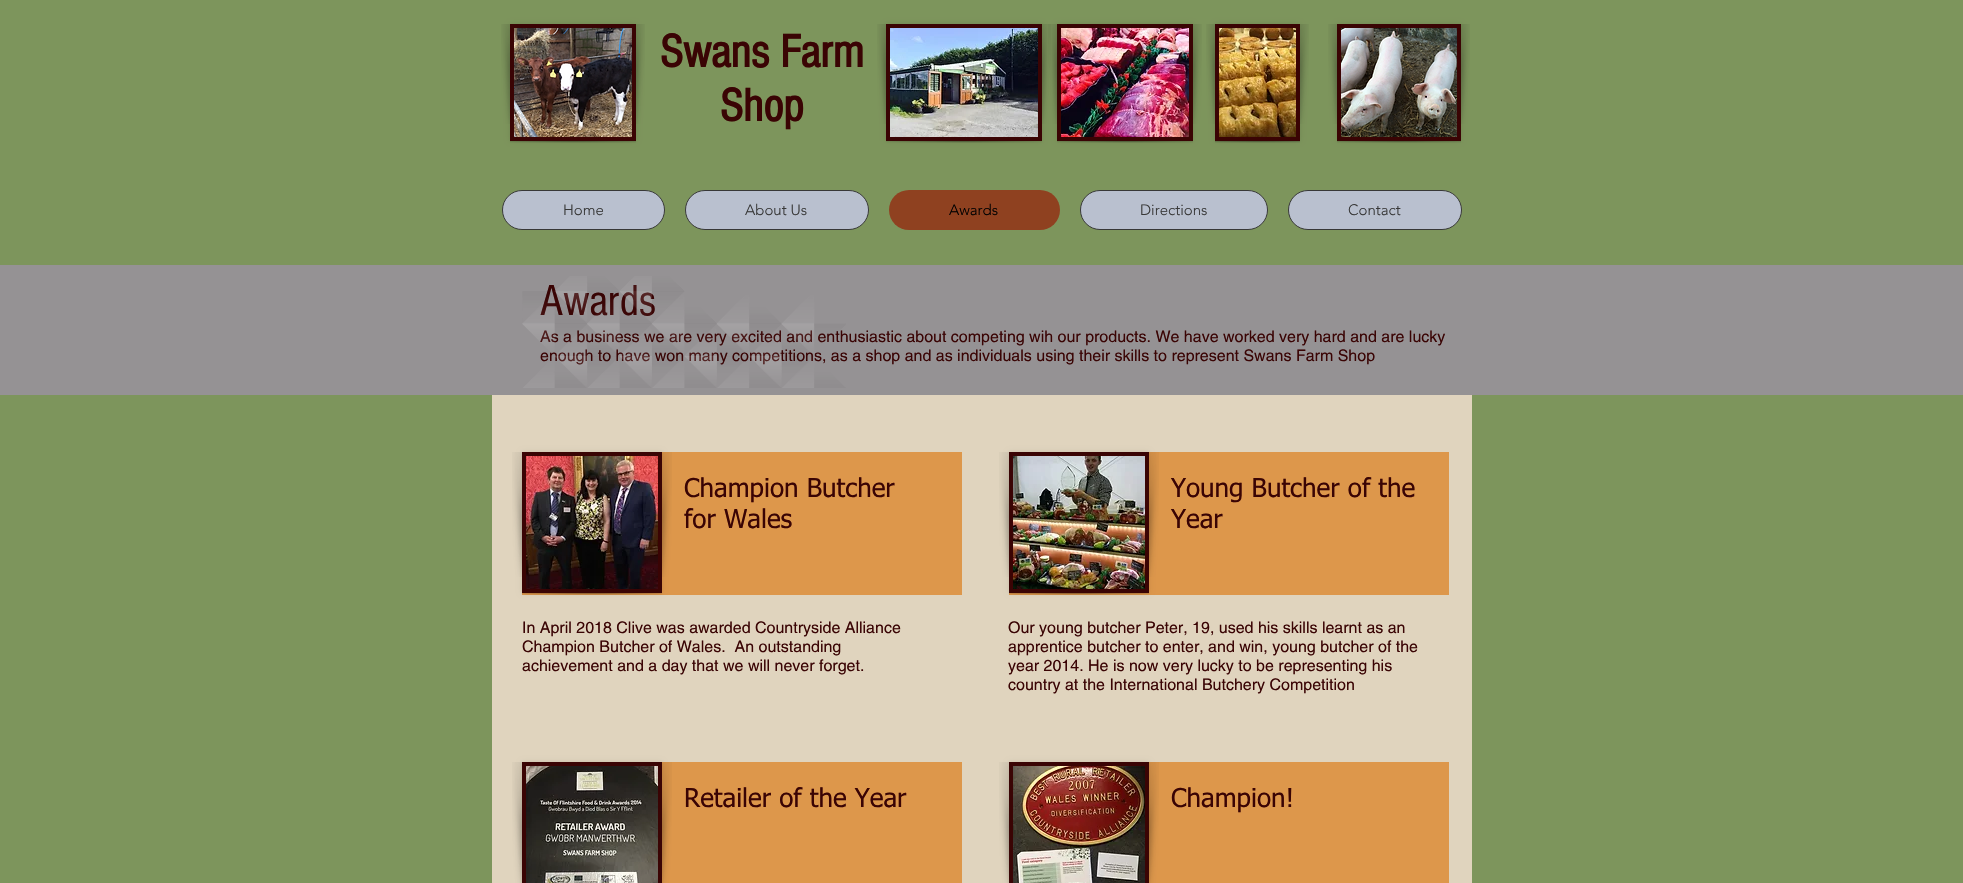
void draw(SkCanvas* canvas) {
	SkPaint fill;
	fill.setAntiAlias(true);
	auto makeFont = [&](const char* family, int weight, float size, bool italic = false) {
		SkFontStyle style(weight, SkFontStyle::kNormal_Width,
			italic ? SkFontStyle::kItalic_Slant : SkFontStyle::kUpright_Slant);
		SkFont result(fontMgr->matchFamilyStyle(family, style), size);
		result.setSubpixel(true);
		return result;
	};
	auto text = [&](const char* s, float x, float y, const SkFont& font) {
		canvas->drawString(s, x, y, font, fill);
	};
	auto box = [&](float l, float t, float r, float b) {
		canvas->drawRect(SkRect::MakeLTRB(l, t, r, b), fill);
	};
	auto roundBox = [&](float l, float t, float r, float b, float radius) {
		canvas->drawRoundRect(SkRect::MakeLTRB(l, t, r, b), radius, radius, fill);
	};
	auto picture = [&](const char* path, float l, float t, float r, float b) {
		auto image = SkImages::DeferredFromEncodedData(SkData::MakeFromFileName(path));
		canvas->drawImageRect(image, SkRect::MakeLTRB(l, t, r, b), SkSamplingOptions());
	};
	canvas->clear(0xFF7D955C);
	fill.setColor(0x1A000000);
	fill.setMaskFilter(SkMaskFilter::MakeBlur(kNormal_SkBlurStyle, 2.5f));
	canvas->drawRect(SkRect::MakeLTRB(510, 24, 636, 141), fill);
	fill.setMaskFilter(nullptr);
	fill.setColor(0xFF3A0404);
	box(510, 24, 636, 141);
	picture("image0.png", 514, 28, 632, 137);
	picture("image1.png", 510, 141, 636, 143);
	picture("image2.png", 501, 24, 510, 124);
	picture("image3.png", 636, 24, 645, 124);
	fill.setColor(0x1A000000);
	fill.setMaskFilter(SkMaskFilter::MakeBlur(kNormal_SkBlurStyle, 2.5f));
	canvas->drawRect(SkRect::MakeLTRB(886, 24, 1042, 141), fill);
	fill.setMaskFilter(nullptr);
	fill.setColor(0xFF3A0404);
	box(886, 24, 1042, 141);
	picture("image4.png", 890, 28, 1038, 137);
	picture("image5.png", 886, 141, 1042, 143);
	picture("image2.png", 877, 24, 886, 124);
	picture("image3.png", 1042, 24, 1051, 124);
	fill.setColor(0x1A000000);
	fill.setMaskFilter(SkMaskFilter::MakeBlur(kNormal_SkBlurStyle, 2.5f));
	canvas->drawRect(SkRect::MakeLTRB(1057, 24, 1193, 141), fill);
	fill.setMaskFilter(nullptr);
	fill.setColor(0xFF3A0404);
	box(1057, 24, 1193, 141);
	picture("image6.png", 1061, 28, 1189, 137);
	picture("image7.png", 1057, 141, 1193, 143);
	picture("image8.png", 1048, 24, 1057, 124);
	picture("image3.png", 1193, 24, 1202, 124);
	fill.setColor(0x1A000000);
	fill.setMaskFilter(SkMaskFilter::MakeBlur(kNormal_SkBlurStyle, 2.5f));
	canvas->drawRect(SkRect::MakeLTRB(1215, 24, 1300, 141), fill);
	fill.setMaskFilter(nullptr);
	fill.setColor(0xFF3A0404);
	box(1215, 24, 1300, 141);
	picture("image9.png", 1219, 28, 1296, 137);
	picture("image10.png", 1215, 141, 1300, 143);
	picture("image2.png", 1206, 24, 1215, 124);
	picture("image3.png", 1300, 24, 1309, 124);
	fill.setColor(0x1A000000);
	fill.setMaskFilter(SkMaskFilter::MakeBlur(kNormal_SkBlurStyle, 2.5f));
	canvas->drawRect(SkRect::MakeLTRB(1337, 24, 1461, 141), fill);
	fill.setMaskFilter(nullptr);
	fill.setColor(0xFF3A0404);
	box(1337, 24, 1461, 141);
	picture("image11.png", 1341, 28, 1457, 137);
	picture("image12.png", 1337, 141, 1461, 143);
	picture("image2.png", 1328, 24, 1337, 124);
	picture("image3.png", 1461, 24, 1470, 124);
	fill.setColor(0xFFB9C0CF);
	canvas->drawRoundRect(SkRect::MakeLTRB(502.5f, 190.5f, 664.5f, 229.5f), 19.5f, 19.5f, fill);
	fill.setStyle(SkPaint::kStroke_Style);
	fill.setStrokeWidth(1);
	fill.setColor(0xFF383838);
	canvas->drawRoundRect(SkRect::MakeLTRB(502.5f, 190.5f, 664.5f, 229.5f), 19.5f, 19.5f, fill);
	fill.setStyle(SkPaint::kFill_Style);
	fill.setColor(0xFFB9C0CF);
	canvas->drawRoundRect(SkRect::MakeLTRB(685.5f, 190.5f, 868.5f, 229.5f), 19.5f, 19.5f, fill);
	fill.setStyle(SkPaint::kStroke_Style);
	fill.setColor(0xFF383838);
	canvas->drawRoundRect(SkRect::MakeLTRB(685.5f, 190.5f, 868.5f, 229.5f), 19.5f, 19.5f, fill);
	fill.setStyle(SkPaint::kFill_Style);
	fill.setColor(0xFF8F4120);
	roundBox(889, 190, 1060, 230, 20);
	fill.setColor(0xFFB9C0CF);
	canvas->drawRoundRect(SkRect::MakeLTRB(1080.5f, 190.5f, 1267.5f, 229.5f), 19.5f, 19.5f, fill);
	fill.setStyle(SkPaint::kStroke_Style);
	fill.setColor(0xFF383838);
	canvas->drawRoundRect(SkRect::MakeLTRB(1080.5f, 190.5f, 1267.5f, 229.5f), 19.5f, 19.5f, fill);
	fill.setStyle(SkPaint::kFill_Style);
	fill.setColor(0xFFB9C0CF);
	canvas->drawRoundRect(SkRect::MakeLTRB(1288.5f, 190.5f, 1461.5f, 229.5f), 19.5f, 19.5f, fill);
	fill.setStyle(SkPaint::kStroke_Style);
	fill.setColor(0xFF383838);
	canvas->drawRoundRect(SkRect::MakeLTRB(1288.5f, 190.5f, 1461.5f, 229.5f), 19.5f, 19.5f, fill);
	fill.setStyle(SkPaint::kFill_Style);
	fill.setColor(0xFF959294);
	box(0, 265, 1963, 395);
	fill.setColor(0xFFE0D4BE);
	box(492, 395, 1472, 883);
	fill.setColor(0xFFDD974B);
	box(522, 452, 962, 595);
	fill.setColor(0x1A000000);
	fill.setMaskFilter(SkMaskFilter::MakeBlur(kNormal_SkBlurStyle, 2.5f));
	canvas->drawRect(SkRect::MakeLTRB(522, 452, 662, 593), fill);
	fill.setMaskFilter(nullptr);
	fill.setColor(0xFF3A0404);
	box(522, 452, 662, 593);
	picture("image14.png", 526, 456, 658, 589);
	picture("image15.png", 522, 593, 662, 595);
	picture("image16.png", 512, 452, 522, 577);
	picture("image17.png", 662, 452, 672, 577);
	fill.setColor(0xFFDD974B);
	box(1009, 452, 1449, 595);
	fill.setColor(0x1A000000);
	fill.setMaskFilter(SkMaskFilter::MakeBlur(kNormal_SkBlurStyle, 2.5f));
	canvas->drawRect(SkRect::MakeLTRB(1009, 452, 1149, 593), fill);
	fill.setMaskFilter(nullptr);
	fill.setColor(0xFF3A0404);
	box(1009, 452, 1149, 593);
	picture("image18.png", 1013, 456, 1145, 589);
	picture("image15.png", 1009, 593, 1149, 595);
	picture("image16.png", 999, 452, 1009, 577);
	picture("image17.png", 1149, 452, 1159, 577);
	fill.setColor(0xFFDD974B);
	box(662, 762, 962, 883);
	fill.setColor(0x1A000000);
	fill.setMaskFilter(SkMaskFilter::MakeBlur(kNormal_SkBlurStyle, 2.5f));
	canvas->drawRect(SkRect::MakeLTRB(522, 762, 662, 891), fill);
	fill.setMaskFilter(nullptr);
	fill.setColor(0xFF3A0404);
	box(522, 762, 662, 883);
	picture("image19.png", 526, 766, 658, 883);
	picture("image20.png", 512, 762, 522, 883);
	picture("image21.png", 662, 762, 672, 883);
	fill.setColor(0xFFDD974B);
	box(1149, 762, 1449, 883);
	fill.setColor(0x1A000000);
	fill.setMaskFilter(SkMaskFilter::MakeBlur(kNormal_SkBlurStyle, 2.5f));
	canvas->drawRect(SkRect::MakeLTRB(1009, 762, 1149, 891), fill);
	fill.setMaskFilter(nullptr);
	fill.setColor(0xFF3A0404);
	box(1009, 762, 1149, 883);
	picture("image22.png", 1013, 766, 1145, 883);
	picture("image20.png", 999, 762, 1009, 883);
	picture("image21.png", 1149, 762, 1159, 883);
	auto font1 = makeFont("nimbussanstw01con", 700, 48);
	text("Swans Farm", 660, 67, font1);
	text("Shop", 720, 121, font1);
	auto font2 = makeFont("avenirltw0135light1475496", 300, 15);
	fill.setColor(0xFF383838);
	text("Home", 563, 215, font2);
	text("About Us", 745, 215, font2);
	fill.setColor(0xFF000000);
	text("Awards", 949, 215, font2);
	fill.setColor(0xFF383838);
	text("Directions", 1140, 215, font2);
	text("Contact", 1348, 215, font2);
	auto font3 = makeFont("nimbussanstw01con", 400, 45);
	fill.setColor(0xFF3A0404);
	text("Awards", 540, 315, font3);
	auto font4 = makeFont("helvetica", 400, 16);
	text("As a business we are very excited and enthusiastic about competing wih our products. We have worked very hard and are lucky", 540, 342, font4);
	text("enough to have won many competitions, as a shop and as individuals using their skills to represent Swans Farm Shop", 540, 361, font4);
	picture("image13.png", 522, 276, 846, 388);
	auto font5 = makeFont("tahoma", 400, 26);
	text("Champion Butcher", 684, 497, font5);
	text("for Wales", 684, 528, font5);
	text("Young Butcher of the", 1171, 497, font5);
	text("Year", 1171, 528, font5);
	text("In April 2018 Clive was awarded Countryside Alliance", 522, 633, font4);
	text("Champion Butcher of Wales.  An outstanding", 522, 652, font4);
	text("achievement and a day that we will never forget.", 522, 671, font4);
	text("Our young butcher Peter, 19, used his skills learnt as an", 1008, 633, font4);
	text("apprentice butcher to enter, and win, young butcher of the", 1008, 652, font4);
	text("year 2014. He is now very lucky to be representing his", 1008, 671, font4);
	text("country at the International Butchery Competition", 1008, 690, font4);
	text("Retailer of the Year", 684, 807, font5);
	text("Champion!", 1171, 807, font5);
}
